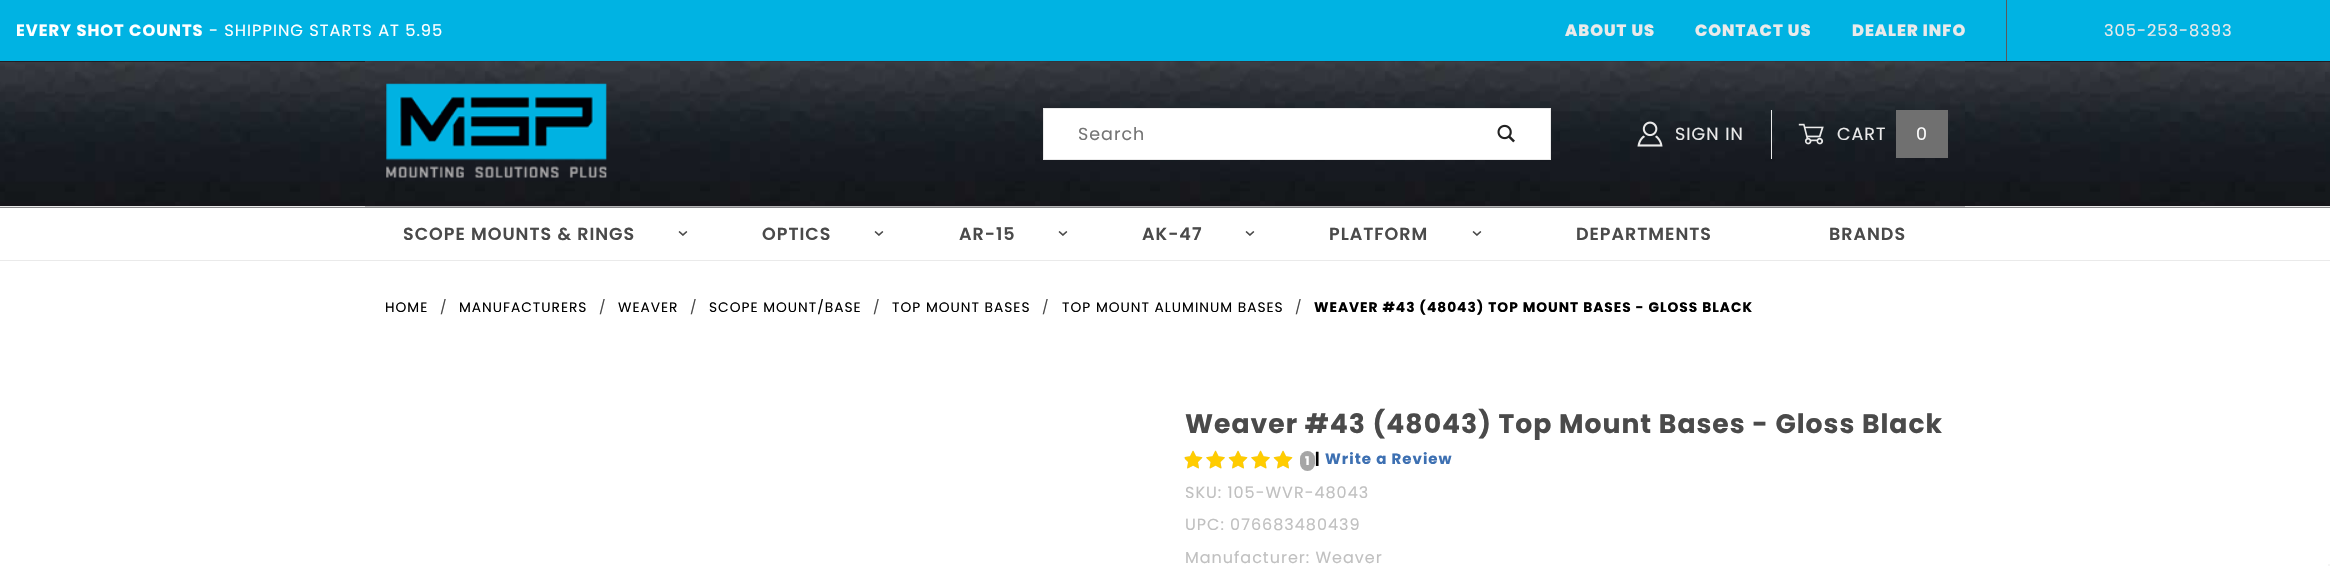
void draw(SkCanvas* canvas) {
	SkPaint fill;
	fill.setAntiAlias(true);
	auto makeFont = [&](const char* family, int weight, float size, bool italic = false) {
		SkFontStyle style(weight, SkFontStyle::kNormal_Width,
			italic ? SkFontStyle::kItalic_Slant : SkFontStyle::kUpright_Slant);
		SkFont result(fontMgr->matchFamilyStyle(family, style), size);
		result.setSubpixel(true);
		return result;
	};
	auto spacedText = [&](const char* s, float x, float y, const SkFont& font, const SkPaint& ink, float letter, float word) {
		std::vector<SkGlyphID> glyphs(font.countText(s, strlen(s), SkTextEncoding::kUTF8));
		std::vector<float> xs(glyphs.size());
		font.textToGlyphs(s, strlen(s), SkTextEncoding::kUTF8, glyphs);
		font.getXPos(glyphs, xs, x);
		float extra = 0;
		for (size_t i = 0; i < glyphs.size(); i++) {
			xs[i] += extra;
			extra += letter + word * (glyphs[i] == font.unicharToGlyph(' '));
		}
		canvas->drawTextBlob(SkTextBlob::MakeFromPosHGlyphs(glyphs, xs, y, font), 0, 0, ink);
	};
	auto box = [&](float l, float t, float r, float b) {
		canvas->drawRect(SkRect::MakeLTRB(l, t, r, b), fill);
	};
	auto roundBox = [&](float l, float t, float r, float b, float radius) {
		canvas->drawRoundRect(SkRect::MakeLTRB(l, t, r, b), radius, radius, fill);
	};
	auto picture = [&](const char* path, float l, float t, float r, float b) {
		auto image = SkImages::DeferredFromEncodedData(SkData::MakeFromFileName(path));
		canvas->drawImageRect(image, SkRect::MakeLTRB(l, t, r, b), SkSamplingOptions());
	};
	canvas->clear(0xFFFFFFFF);
	picture("image0.png", 0, 61, 2330, 208);
	fill.setColor(0xFFEAEAEA);
	box(0, 206, 2330, 207);
	fill.setColor(0xFF00B3E3);
	box(0, 0, 2330, 61);
	fill.setColor(0xFF5A5A5A);
	box(2006, 0, 2007, 61);
	picture("image1.png", 365, 61, 1965, 207);
	picture("image2.png", 386, 83, 607, 178);
	fill.setColor(0xFFFFFFFF);
	canvas->drawRect(SkRect::MakeLTRB(1043.5f, 108.5f, 1550.5f, 159.5f), fill);
	fill.setStyle(SkPaint::kStroke_Style);
	fill.setStrokeWidth(1);
	fill.setColor(0xFFEAEAEA);
	canvas->drawRect(SkRect::MakeLTRB(1043.5f, 108.5f, 1550.5f, 159.5f), fill);
	picture("image3.png", 1497, 124, 1515, 143);
	fill.setStyle(SkPaint::kFill_Style);
	box(1771, 110, 1772, 159);
	picture("image4.png", 1637, 121, 1663, 147);
	picture("image5.png", 1798, 123, 1824, 145);
	fill.setColor(0xFF707070);
	box(1896, 110, 1948, 158);
	fill.setColor(0xFFEAEAEA);
	box(0, 260, 2330, 261);
	picture("image9.png", 1183, 451, 1203, 469);
	picture("image6.png", 1185, 450, 1203, 469);
	picture("image10.png", 1206, 450, 1225, 469);
	picture("image7.png", 1206, 450, 1225, 469);
	picture("image9.png", 1228, 451, 1248, 469);
	picture("image8.png", 1228, 450, 1248, 469);
	picture("image10.png", 1251, 450, 1270, 469);
	picture("image7.png", 1251, 450, 1270, 469);
	picture("image9.png", 1273, 451, 1293, 469);
	picture("image8.png", 1273, 450, 1293, 469);
	fill.setColor(0xFFA6A6A6);
	roundBox(1300, 451, 1315, 471, 7.5f);
	fill.setColor(0xFFF5F5F5);
	box(2328, 564, 2330, 566);
	auto font1 = makeFont("Poppins", 700, 16.25f);
	fill.setColor(0xFFFFFFFF);
	spacedText("EVERY SHOT COUNTS", 16, 36, font1, fill, 1, 0);
	auto font2 = makeFont("Poppins", 400, 16.25f);
	spacedText("- SHIPPING STARTS AT 5.95", 209, 36, font2, fill, 1, 0);
	auto font3 = makeFont("Poppins", 800, 16.25f);
	fill.setColor(0xFFEAEAEA);
	spacedText("ABOUT US", 1565, 36, font3, fill, 1, 0);
	spacedText("CONTACT US", 1695, 36, font3, fill, 1, 0);
	spacedText("DEALER INFO", 1852, 36, font3, fill, 1, 0);
	spacedText("305-253-8393", 2104, 36, font2, fill, 1, 0);
	auto font4 = makeFont("Poppins", 400, 17.5f);
	fill.setColor(0xFF757575);
	spacedText("Search", 1078, 140, font4, fill, 1, 0);
	fill.setColor(0xFFEAEAEA);
	spacedText("SIGN IN", 1675, 140, font4, fill, 1, 0);
	spacedText("CART", 1837, 140, font4, fill, 1, 0);
	fill.setColor(0xFFFFFFFF);
	spacedText("0", 1916, 140, font4, fill, 1, 0);
	auto font5 = makeFont("Poppins", 600, 17.5f);
	fill.setColor(0xFF4A4A4A);
	spacedText("SCOPE MOUNTS & RINGS", 403, 240, font5, fill, 1, 0);
	auto font6 = makeFont("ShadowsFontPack", 400, 9);
	canvas->save();
	canvas->rotate(90, 679, 229);
	spacedText("3", 679, 229, font6, fill, 1, 0);
	canvas->restore();
	spacedText("OPTICS", 762, 240, font5, fill, 1, 0);
	canvas->save();
	canvas->rotate(90, 875, 229);
	spacedText("3", 875, 229, font6, fill, 1, 0);
	canvas->restore();
	spacedText("AR-15", 959, 240, font5, fill, 1, 0);
	canvas->save();
	canvas->rotate(90, 1059, 229);
	spacedText("3", 1059, 229, font6, fill, 1, 0);
	canvas->restore();
	spacedText("AK-47", 1142, 240, font5, fill, 1, 0);
	canvas->save();
	canvas->rotate(90, 1246, 229);
	spacedText("3", 1246, 229, font6, fill, 1, 0);
	canvas->restore();
	spacedText("PLATFORM", 1329, 240, font5, fill, 1, 0);
	canvas->save();
	canvas->rotate(90, 1473, 229);
	spacedText("3", 1473, 229, font6, fill, 1, 0);
	canvas->restore();
	spacedText("DEPARTMENTS", 1576, 240, font5, fill, 1, 0);
	spacedText("BRANDS", 1829, 240, font5, fill, 1, 0);
	auto font7 = makeFont("Poppins", 400, 13.75f);
	fill.setColor(0xFF000000);
	spacedText("HOME", 385, 312, font7, fill, 1, 0);
	fill.setColor(0xFF4A4A4A);
	spacedText("/", 440, 312, font7, fill, 1, 0);
	fill.setColor(0xFF000000);
	spacedText("MANUFACTURERS", 459, 312, font7, fill, 1, 0);
	fill.setColor(0xFF4A4A4A);
	spacedText("/", 599, 312, font7, fill, 1, 0);
	fill.setColor(0xFF000000);
	spacedText("WEAVER", 618, 312, font7, fill, 1, 0);
	fill.setColor(0xFF4A4A4A);
	spacedText("/", 690, 312, font7, fill, 1, 0);
	fill.setColor(0xFF000000);
	spacedText("SCOPE MOUNT/BASE", 709, 312, font7, fill, 1, 0);
	fill.setColor(0xFF4A4A4A);
	spacedText("/", 873, 312, font7, fill, 1, 0);
	fill.setColor(0xFF000000);
	spacedText("TOP MOUNT BASES", 892, 312, font7, fill, 1, 0);
	fill.setColor(0xFF4A4A4A);
	spacedText("/", 1042, 312, font7, fill, 1, 0);
	fill.setColor(0xFF000000);
	spacedText("TOP MOUNT ALUMINUM BASES", 1062, 312, font7, fill, 1, 0);
	fill.setColor(0xFF4A4A4A);
	spacedText("/", 1295, 312, font7, fill, 1, 0);
	auto font8 = makeFont("Poppins", 700, 13.75f);
	fill.setColor(0xFF000000);
	spacedText("WEAVER #43 (48043) TOP MOUNT BASES - GLOSS BLACK", 1314, 312, font8, fill, 1, 0);
	auto font9 = makeFont("Poppins", 700, 26.65f);
	fill.setColor(0xFF4A4A4A);
	spacedText("Weaver #43 (48043) Top Mount Bases - Gloss Black", 1185, 433, font9, fill, 1, 0);
	auto font10 = makeFont("Poppins", 700, 12);
	fill.setColor(0xFFFFFFFF);
	spacedText("1", 1305, 465, font10, fill, 1, 0);
	auto font11 = makeFont("Poppins", 700, 15);
	fill.setColor(0xFF000000);
	spacedText("|", 1315, 464, font11, fill, 1, 0);
	fill.setColor(0xFF3D70B2);
	spacedText("Write a Review", 1325, 464, font11, fill, 1, 0);
	auto font12 = makeFont("Poppins", 400, 16);
	fill.setColor(0xFFC0C0C0);
	spacedText("SKU: 105-WVR-48043", 1185, 498, font12, fill, 1, 0);
	spacedText("UPC: 076683480439", 1185, 530, font12, fill, 1, 0);
	spacedText("Manufacturer: Weaver", 1185, 563, font12, fill, 1, 0);
}
